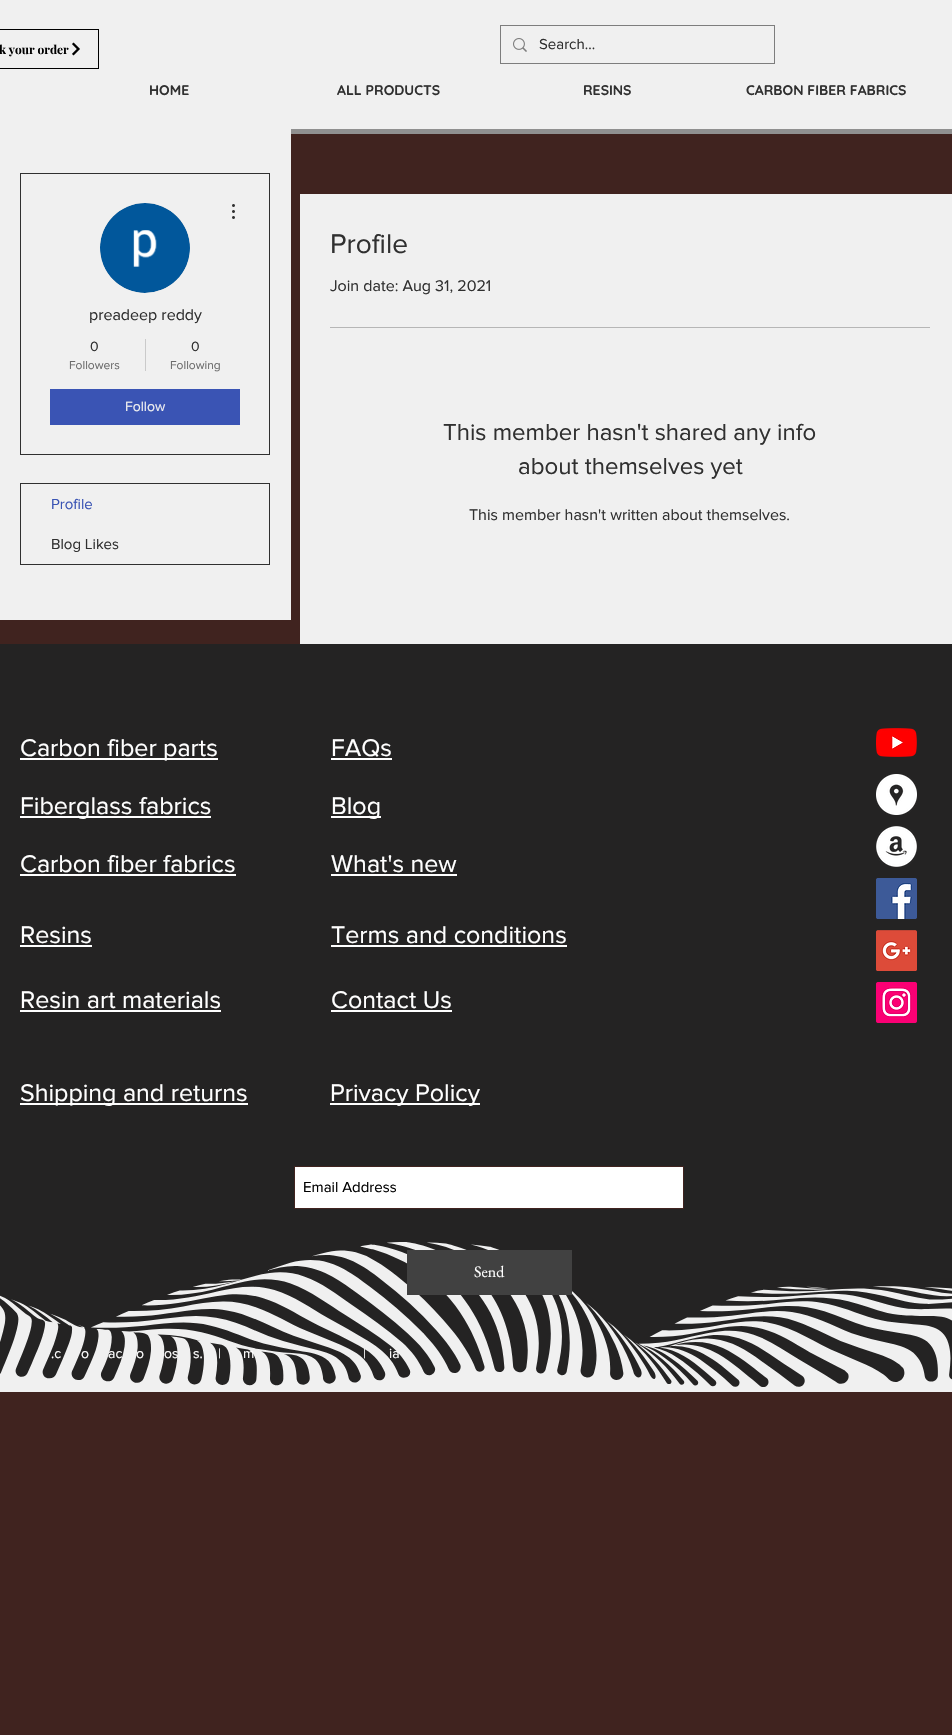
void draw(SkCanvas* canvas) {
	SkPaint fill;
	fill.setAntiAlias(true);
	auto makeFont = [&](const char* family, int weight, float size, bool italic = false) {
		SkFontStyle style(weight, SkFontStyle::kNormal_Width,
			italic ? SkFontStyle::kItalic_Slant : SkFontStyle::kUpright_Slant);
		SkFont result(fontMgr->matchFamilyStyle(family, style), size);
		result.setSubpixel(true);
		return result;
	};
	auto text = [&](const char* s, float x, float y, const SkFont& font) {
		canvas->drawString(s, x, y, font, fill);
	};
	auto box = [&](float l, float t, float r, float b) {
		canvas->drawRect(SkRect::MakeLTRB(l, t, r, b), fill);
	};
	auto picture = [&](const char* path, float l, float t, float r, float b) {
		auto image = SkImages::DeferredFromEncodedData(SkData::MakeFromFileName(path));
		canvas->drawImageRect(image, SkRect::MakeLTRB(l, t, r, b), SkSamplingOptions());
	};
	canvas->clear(0xFF40231F);
	fill.setColor(0xFFF0F0F0);
	box(0, 0, 952, 129);
	fill.setColor(0xFF909090);
	box(291, 129, 952, 134);
	fill.setStyle(SkPaint::kStroke_Style);
	fill.setStrokeWidth(1);
	fill.setColor(0xFF000000);
	canvas->drawRect(SkRect::MakeLTRB(-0.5f, 29.5f, 98.5f, 68.5f), fill);
	picture("image0.png", 72, 42, 80, 56);
	fill.setColor(0xFF7D7D7D);
	canvas->drawRect(SkRect::MakeLTRB(500.5f, 25.5f, 774.5f, 63.5f), fill);
	picture("image1.png", 513, 38, 527, 52);
	fill.setStyle(SkPaint::kFill_Style);
	fill.setColor(0xFFF0F0F0);
	box(0, 129, 291, 620);
	fill.setStyle(SkPaint::kStroke_Style);
	fill.setColor(0xFF303030);
	canvas->drawRect(SkRect::MakeLTRB(20.5f, 173.5f, 269.5f, 454.5f), fill);
	fill.setStyle(SkPaint::kFill_Style);
	fill.setColor(0xFFD8D8D8);
	canvas->drawCircle(145, 248, 45, fill);
	picture("image2.png", 100, 203, 190, 293);
	picture("image3.png", 232, 204, 235, 219);
	fill.setColor(0xFFCACACA);
	box(145, 339, 146, 371);
	fill.setColor(0xFF3A54B4);
	box(50, 389, 240, 425);
	fill.setStyle(SkPaint::kStroke_Style);
	fill.setColor(0xFF303030);
	canvas->drawRect(SkRect::MakeLTRB(20.5f, 483.5f, 269.5f, 564.5f), fill);
	fill.setStyle(SkPaint::kFill_Style);
	fill.setColor(0xFFF0F0F0);
	box(300, 194, 952, 644);
	fill.setColor(0xFFB6B6B6);
	box(330, 327, 930, 328);
	fill.setColor(0xFF242323);
	box(0, 644, 952, 1387);
	fill.setColor(0xFFFFFFFF);
	box(20, 758, 218, 760);
	box(331, 758, 392, 760);
	picture("image4.png", 876, 728, 917, 757);
	picture("image5.png", 876, 774, 917, 815);
	picture("image6.png", 876, 826, 917, 867);
	picture("image7.png", 876, 878, 917, 919);
	picture("image8.png", 876, 930, 917, 971);
	picture("image9.png", 876, 982, 917, 1023);
	box(20, 816, 211, 818);
	box(331, 816, 381, 818);
	box(20, 874, 236, 876);
	box(331, 874, 457, 876);
	box(20, 945, 92, 947);
	box(331, 945, 567, 947);
	box(20, 1010, 221, 1012);
	box(331, 1010, 452, 1012);
	box(20, 1103, 248, 1105);
	box(330, 1103, 480, 1105);
	canvas->drawRect(SkRect::MakeLTRB(294.5f, 1166.5f, 683.5f, 1208.5f), fill);
	fill.setStyle(SkPaint::kStroke_Style);
	fill.setColor(0xFF40231F);
	canvas->drawRect(SkRect::MakeLTRB(294.5f, 1166.5f, 683.5f, 1208.5f), fill);
	picture("image10.png", 0, 1242, 952, 1392);
	fill.setStyle(SkPaint::kFill_Style);
	fill.setColor(0xFF414141);
	box(407, 1250, 572, 1295);
	auto font1 = makeFont("Playfair Display", 700, 12);
	fill.setColor(0xFF000000);
	text("k your order", -1, 54, font1);
	auto font2 = makeFont("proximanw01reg", 400, 15);
	fill.setColor(0xFF303030);
	text("Search...", 539, 49, font2);
	auto font3 = makeFont("Quicksand", 700, 14);
	text("HOME", 149, 95, font3);
	text("ALL PRODUCTS", 337, 95, font3);
	text("RESINS", 583, 95, font3);
	text("CARBON FIBER FABRICS", 746, 95, font3);
	auto font4 = makeFont("proximanw01reg", 400, 16);
	text("preadeep reddy", 89, 320, font4);
	auto font5 = makeFont("proximanw01reg", 400, 14);
	text("0", 90, 351, font5);
	auto font6 = makeFont("proximanw01reg", 400, 12);
	fill.setColor(0xFF6A6A6A);
	text("Followers", 69, 369, font6);
	fill.setColor(0xFF303030);
	text("0", 191, 351, font5);
	fill.setColor(0xFF6A6A6A);
	text("Following", 170, 369, font6);
	fill.setColor(0xFFF0F0F0);
	text("Follow", 125, 411, font5);
	fill.setColor(0xFF3A54B4);
	text("Profile", 51, 509, font2);
	fill.setColor(0xFF303030);
	text("Blog Likes", 51, 549, font2);
	auto font7 = makeFont("proximanw01reg", 400, 28);
	text("Profile", 330, 253, font7);
	text("Join date: Aug 31, 2021", 330, 291, font4);
	auto font8 = makeFont("proximanw01reg", 400, 24);
	text("This member hasn't shared any info", 443, 440, font8);
	text("about themselves yet", 518, 474, font8);
	text("This member hasn't written about themselves.", 469, 520, font4);
	auto font9 = makeFont("proximanw01reg", 400, 25);
	fill.setColor(0xFFFFFFFF);
	text("Carbon fiber parts", 20, 756, font9);
	text("FAQs", 331, 756, font9);
	text("Fiberglass fabrics", 20, 814, font9);
	text("Blog", 331, 814, font9);
	text("Carbon fiber fabrics", 20, 872, font9);
	text("What's new", 331, 872, font9);
	text("Resins", 20, 943, font9);
	text("Terms and conditions", 331, 943, font9);
	text("Resin art materials", 20, 1008, font9);
	text("Contact Us", 331, 1008, font9);
	text("Shipping and returns", 20, 1101, font9);
	text("Privacy Policy", 330, 1101, font9);
	fill.setColor(0xFF000000);
	text("Email Address", 303, 1192, font2);
	auto font10 = makeFont("EB Garamond", 400, 16);
	fill.setColor(0xFFFFFFFF);
	text("Send", 474, 1277, font10);
	text(".c", 51, 1358, font5);
	text("o", 81, 1358, font5);
	text("ac", 108, 1358, font5);
	text("o", 136, 1358, font5);
	text("os", 164, 1358, font5);
	text("s.", 193, 1358, font5);
	text("|", 218, 1358, font5);
	text("m", 243, 1358, font5);
	text("|", 363, 1358, font5);
	text("ia", 389, 1358, font5);
}
